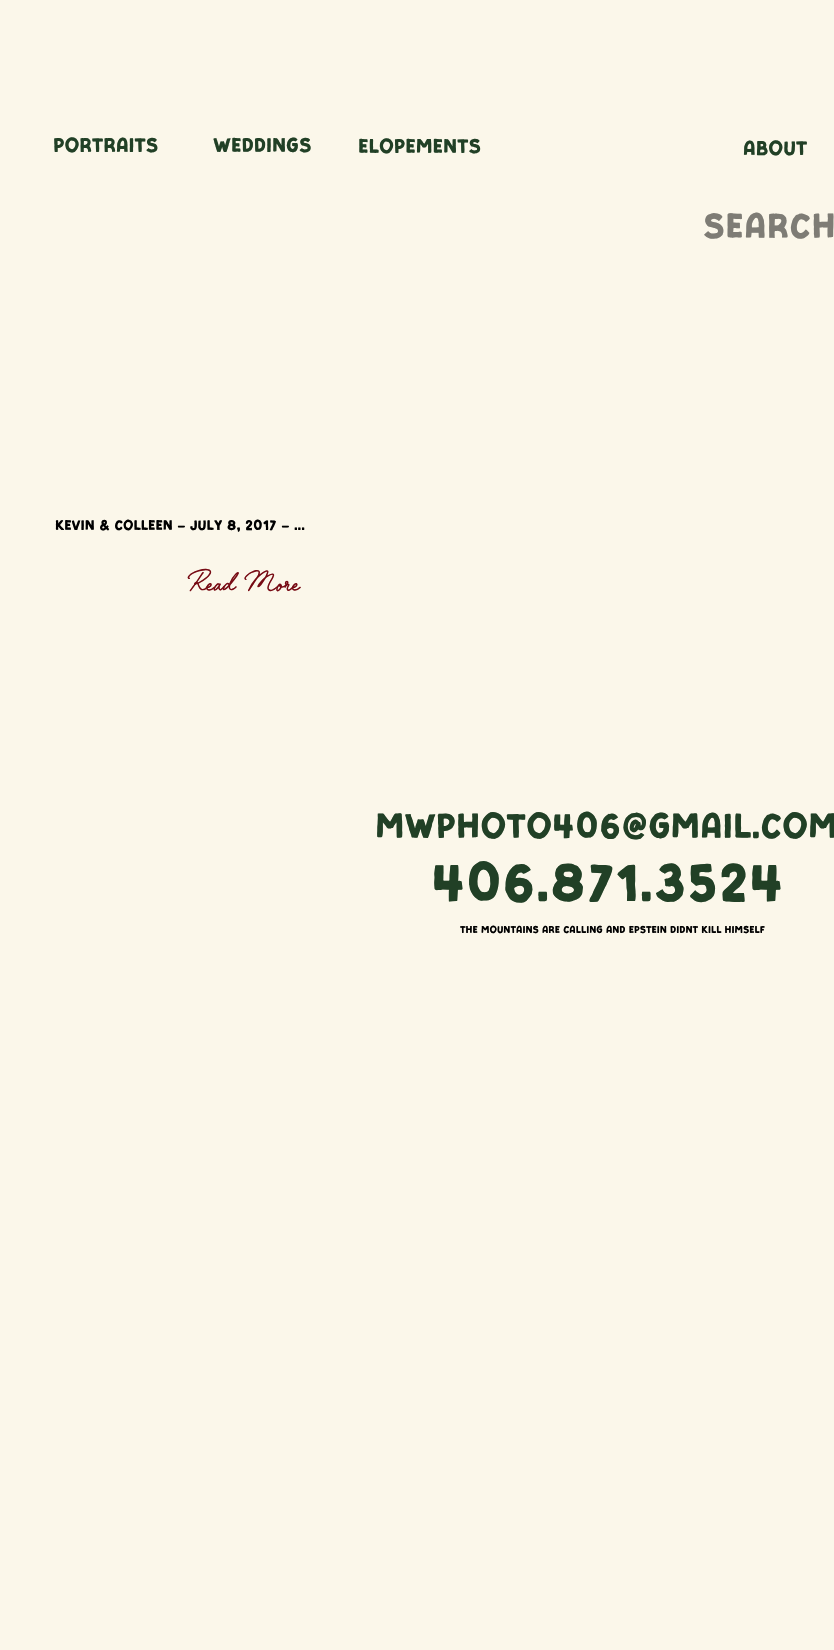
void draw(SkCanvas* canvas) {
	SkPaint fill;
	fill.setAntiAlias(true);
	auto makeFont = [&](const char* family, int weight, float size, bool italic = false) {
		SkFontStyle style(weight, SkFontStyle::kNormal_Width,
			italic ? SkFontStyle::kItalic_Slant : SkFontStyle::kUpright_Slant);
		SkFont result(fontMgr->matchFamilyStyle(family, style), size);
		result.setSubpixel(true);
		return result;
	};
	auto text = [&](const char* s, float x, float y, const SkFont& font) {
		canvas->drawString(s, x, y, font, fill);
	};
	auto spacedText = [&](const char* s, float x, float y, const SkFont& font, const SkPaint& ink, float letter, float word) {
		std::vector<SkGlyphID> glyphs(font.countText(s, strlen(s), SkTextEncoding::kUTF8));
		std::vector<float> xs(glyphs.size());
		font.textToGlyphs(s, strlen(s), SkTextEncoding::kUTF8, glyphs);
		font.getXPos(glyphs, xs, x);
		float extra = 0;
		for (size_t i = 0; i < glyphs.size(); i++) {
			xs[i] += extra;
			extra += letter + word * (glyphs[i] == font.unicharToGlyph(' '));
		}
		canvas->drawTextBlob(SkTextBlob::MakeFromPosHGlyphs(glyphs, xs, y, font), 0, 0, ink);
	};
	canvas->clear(0xFFFBF7EA);
	auto font1 = makeFont("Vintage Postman", 400, 20);
	fill.setColor(0xFF214026);
	text("PORTRAITS", 53, 152, font1);
	text("WEDDINGS", 213, 152, font1);
	text("ELOPEMENTS", 358, 153, font1);
	text("ABOUT", 743, 155, font1);
	auto font2 = makeFont("Vintage Postman", 400, 35);
	fill.setColor(0xFF7E7C75);
	spacedText("SEARCH", 703, 238, font2, fill, 0.5f, 0);
	auto font3 = makeFont("Vintage Postman", 400, 14);
	fill.setColor(0xFF000000);
	text("Kevin & Colleen – July 8, 2017 – ...", 55, 530, font3);
	auto font4 = makeFont("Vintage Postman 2", 400, 33);
	fill.setColor(0xFF770B14);
	text("Read More", 187, 592, font4);
	fill.setColor(0xFF214026);
	text("mwphoto406@gmail.com", 375, 838, font2);
	auto font5 = makeFont("Vintage Postman", 400, 53);
	text("406.871.3524", 431, 901, font5);
	auto font6 = makeFont("Vintage Postman", 400, 10);
	fill.setColor(0xFF000000);
	text("the mountains are calling and epstein didnt kill himself", 460, 933, font6);
}
